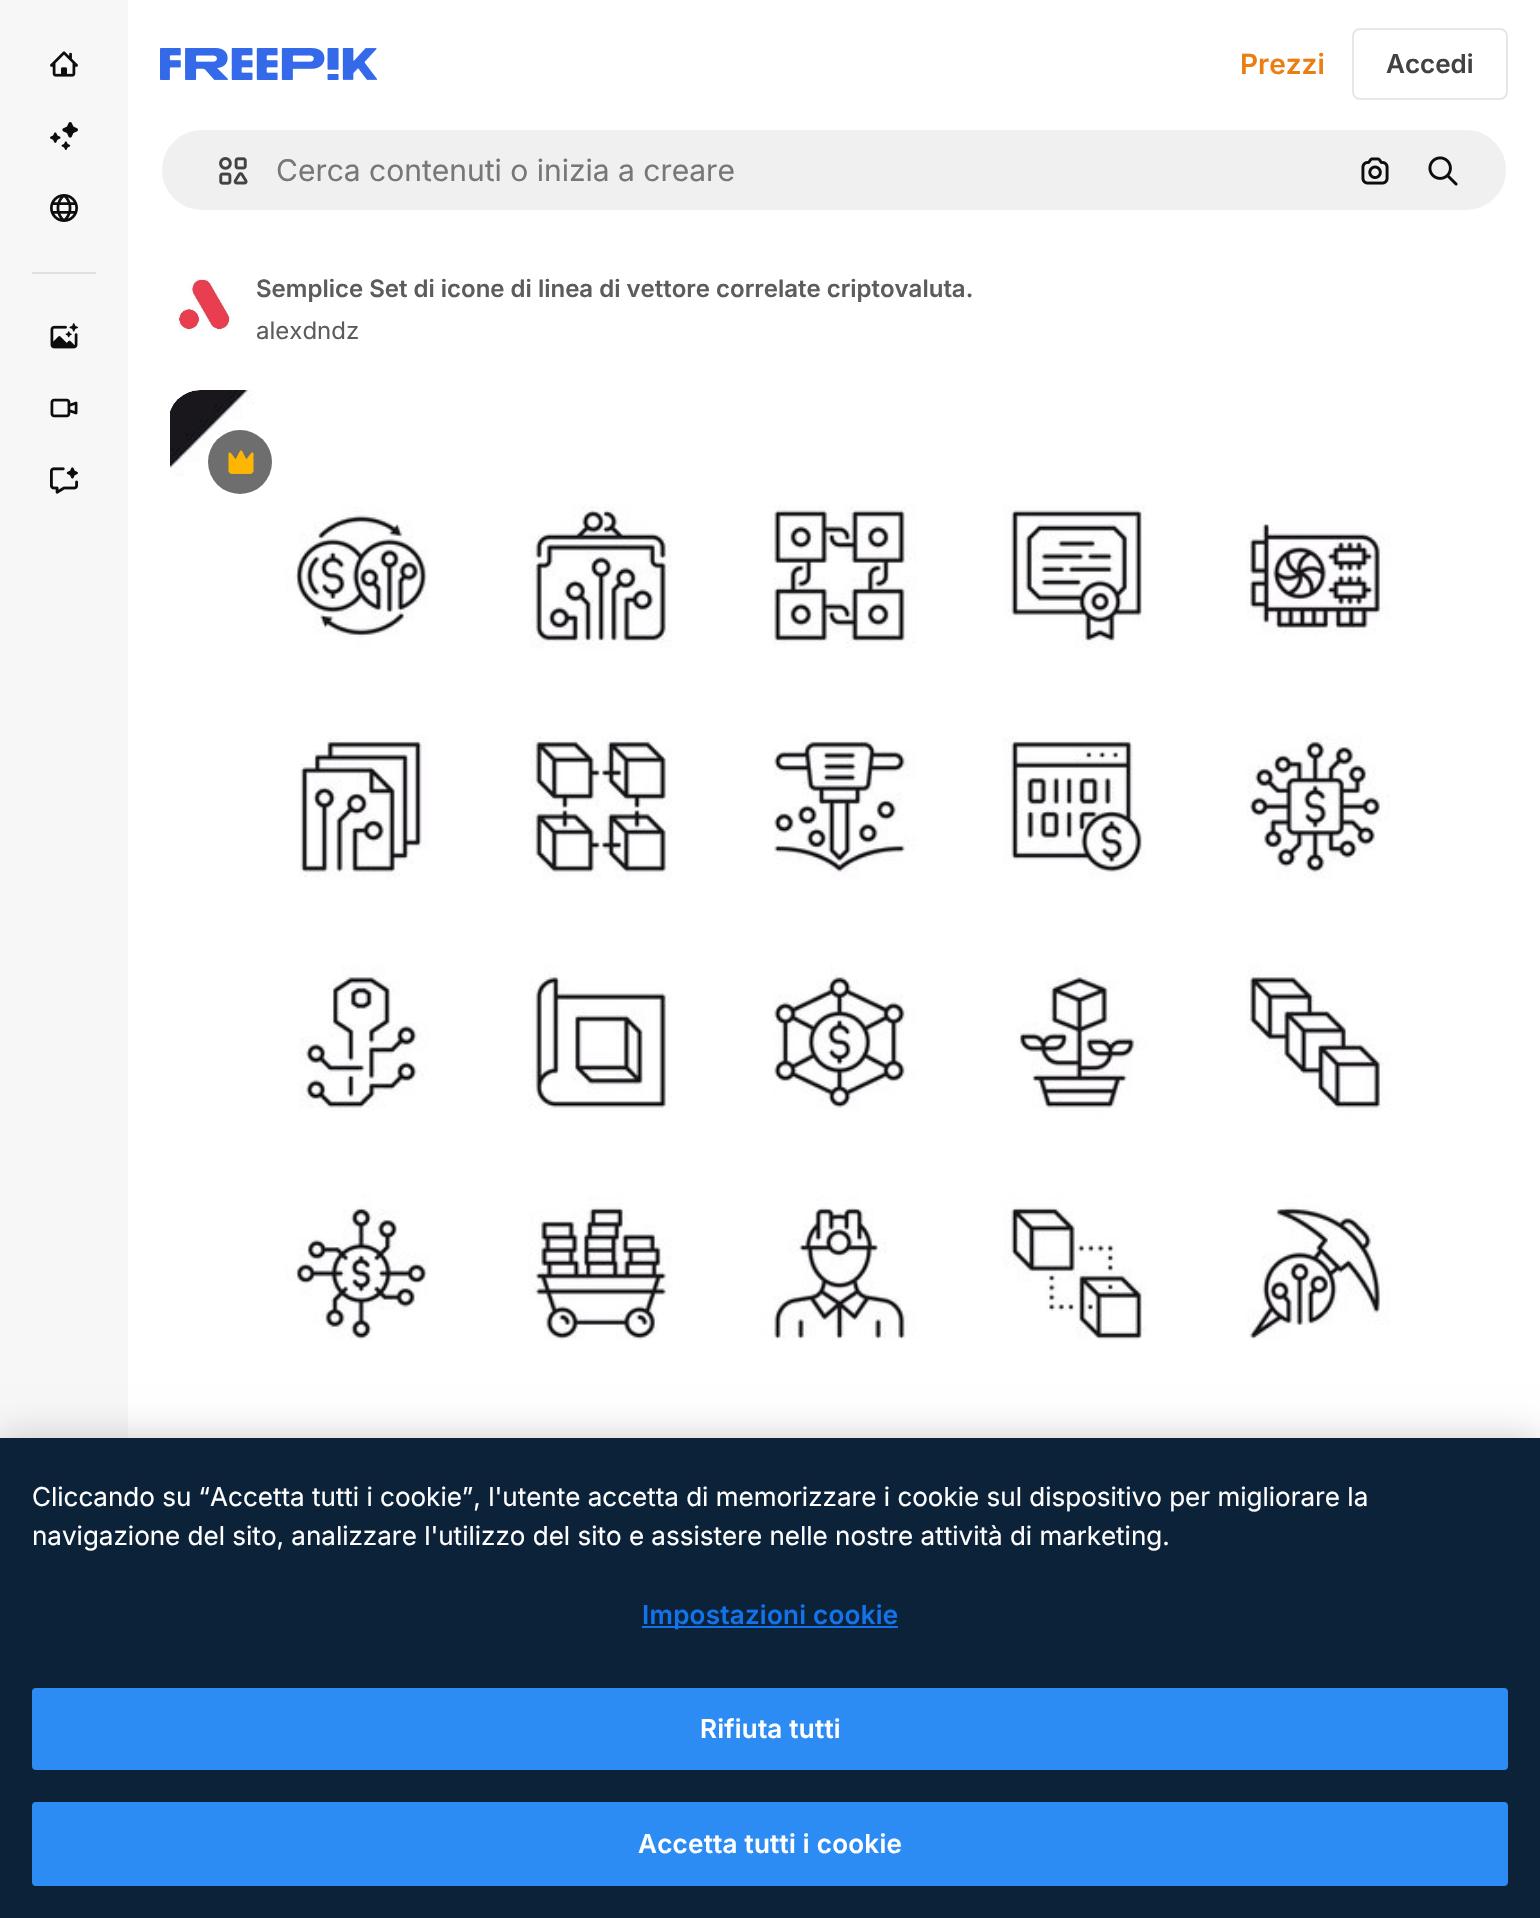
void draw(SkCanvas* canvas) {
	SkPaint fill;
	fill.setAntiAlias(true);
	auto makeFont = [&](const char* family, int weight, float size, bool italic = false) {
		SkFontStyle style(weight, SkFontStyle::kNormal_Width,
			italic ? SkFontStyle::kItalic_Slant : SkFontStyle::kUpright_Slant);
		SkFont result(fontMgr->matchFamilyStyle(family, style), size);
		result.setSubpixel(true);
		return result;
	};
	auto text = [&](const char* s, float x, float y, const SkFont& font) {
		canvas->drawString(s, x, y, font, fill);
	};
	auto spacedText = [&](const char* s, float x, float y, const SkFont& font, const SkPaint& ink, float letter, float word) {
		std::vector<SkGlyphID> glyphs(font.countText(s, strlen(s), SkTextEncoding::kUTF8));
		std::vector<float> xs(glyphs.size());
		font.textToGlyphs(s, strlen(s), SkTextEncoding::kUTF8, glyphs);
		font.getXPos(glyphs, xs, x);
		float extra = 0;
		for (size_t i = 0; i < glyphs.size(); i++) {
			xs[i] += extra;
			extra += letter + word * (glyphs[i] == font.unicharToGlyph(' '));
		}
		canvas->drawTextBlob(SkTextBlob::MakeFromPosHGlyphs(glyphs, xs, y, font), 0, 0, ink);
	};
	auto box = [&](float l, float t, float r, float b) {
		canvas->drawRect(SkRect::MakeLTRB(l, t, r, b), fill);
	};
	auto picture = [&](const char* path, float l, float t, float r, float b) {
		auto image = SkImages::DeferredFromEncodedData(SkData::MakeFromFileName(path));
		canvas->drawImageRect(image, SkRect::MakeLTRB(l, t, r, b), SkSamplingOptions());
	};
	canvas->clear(0xFFFFFFFF);
	fill.setColor(0xFFF7F7F7);
	box(0, 0, 128, 1438);
	picture("image0.png", 50, 51, 78, 77);
	picture("image1.png", 50, 122, 78, 150);
	picture("image2.png", 50, 194, 78, 222);
	fill.setColor(0xFFE0E0E0);
	box(32, 272, 96, 274);
	picture("image3.png", 50, 323, 78, 349);
	picture("image4.png", 50, 398, 78, 418);
	picture("image5.png", 50, 467, 78, 494);
	picture("image6.png", 160, 48, 378, 80);
	fill.setStyle(SkPaint::kStroke_Style);
	fill.setStrokeWidth(2);
	fill.setColor(0xFFE7E7E7);
	canvas->drawRoundRect(SkRect::MakeLTRB(1353, 29, 1507, 99), 7, 7, fill);
	fill.setStyle(SkPaint::kFill_Style);
	fill.setColor(0xFFF0F0F0);
	canvas->drawRoundRect(SkRect::MakeLTRB(161, 129, 1507, 211), 41, 41, fill);
	fill.setStyle(SkPaint::kStroke_Style);
	fill.setColor(0xFFFFFFFF);
	canvas->drawRoundRect(SkRect::MakeLTRB(161, 129, 1507, 211), 41, 41, fill);
	picture("image7.png", 219, 157, 248, 185);
	picture("image8.png", 1361, 157, 1389, 185);
	picture("image9.png", 1428, 156, 1458, 186);
	picture("image10.png", 178, 279, 231, 331);
	picture("image11.png", 170, 390, 1390, 1340);
	fill.setStyle(SkPaint::kFill_Style);
	fill.setColor(0x990D0D0D);
	canvas->drawCircle(240, 462, 32, fill);
	picture("image12.png", 228, 450, 254, 474);
	fill.setColor(0x33000000);
	fill.setMaskFilter(SkMaskFilter::MakeBlur(kNormal_SkBlurStyle, 18));
	canvas->drawRect(SkRect::MakeLTRB(0, 1438, 1540, 1918), fill);
	fill.setMaskFilter(nullptr);
	fill.setColor(0xFF0B2239);
	box(0, 1438, 1540, 1918);
	fill.setColor(0xFF1273EB);
	box(642, 1626, 898, 1628);
	fill.setColor(0xFF2C8CF4);
	canvas->drawRoundRect(SkRect::MakeLTRB(33, 1689, 1507, 1769), 3, 3, fill);
	fill.setStyle(SkPaint::kStroke_Style);
	canvas->drawRoundRect(SkRect::MakeLTRB(33, 1689, 1507, 1769), 3, 3, fill);
	fill.setStyle(SkPaint::kFill_Style);
	canvas->drawRoundRect(SkRect::MakeLTRB(33, 1803, 1507, 1885), 3, 3, fill);
	fill.setStyle(SkPaint::kStroke_Style);
	canvas->drawRoundRect(SkRect::MakeLTRB(33, 1803, 1507, 1885), 3, 3, fill);
	auto font1 = makeFont("Inter", 600, 28);
	fill.setStyle(SkPaint::kFill_Style);
	fill.setColor(0xFFEA7E11);
	text("Prezzi", 1240, 74, font1);
	auto font2 = makeFont("Inter", 600, 26);
	fill.setColor(0xFF424242);
	text("Accedi", 1386, 73, font2);
	auto font3 = makeFont("Inter", 400, 30);
	fill.setColor(0xFF777777);
	text("Cerca contenuti o inizia a creare", 276, 181, font3);
	auto font4 = makeFont("Inter", 600, 24);
	fill.setColor(0xFF5C5C5C);
	text("Semplice Set di icone di linea di vettore correlate criptovaluta.", 256, 297, font4);
	auto font5 = makeFont("Inter", 400, 24);
	text("alexdndz", 256, 339, font5);
	auto font6 = makeFont("Inter", 400, 26.02f);
	fill.setColor(0xFFFFFFFF);
	text("Cliccando su “Accetta tutti i cookie”, l'utente accetta di memorizzare i cookie sul dispositivo per migliorare la", 32, 1506, font6);
	text("navigazione del sito, analizzare l'utilizzo del sito e assistere nelle nostre attività di marketing.", 32, 1545, font6);
	auto font7 = makeFont("Inter", 600, 26.02f);
	fill.setColor(0xFF1273EB);
	spacedText("Impostazioni cookie", 642, 1624, font7, fill, 0.25f, 0);
	fill.setColor(0xFFFFFFFF);
	spacedText("Rifiuta tutti", 700, 1738, font7, fill, 0.25f, 0);
	spacedText("Accetta tutti i cookie", 638, 1853, font7, fill, 0.25f, 0);
}
